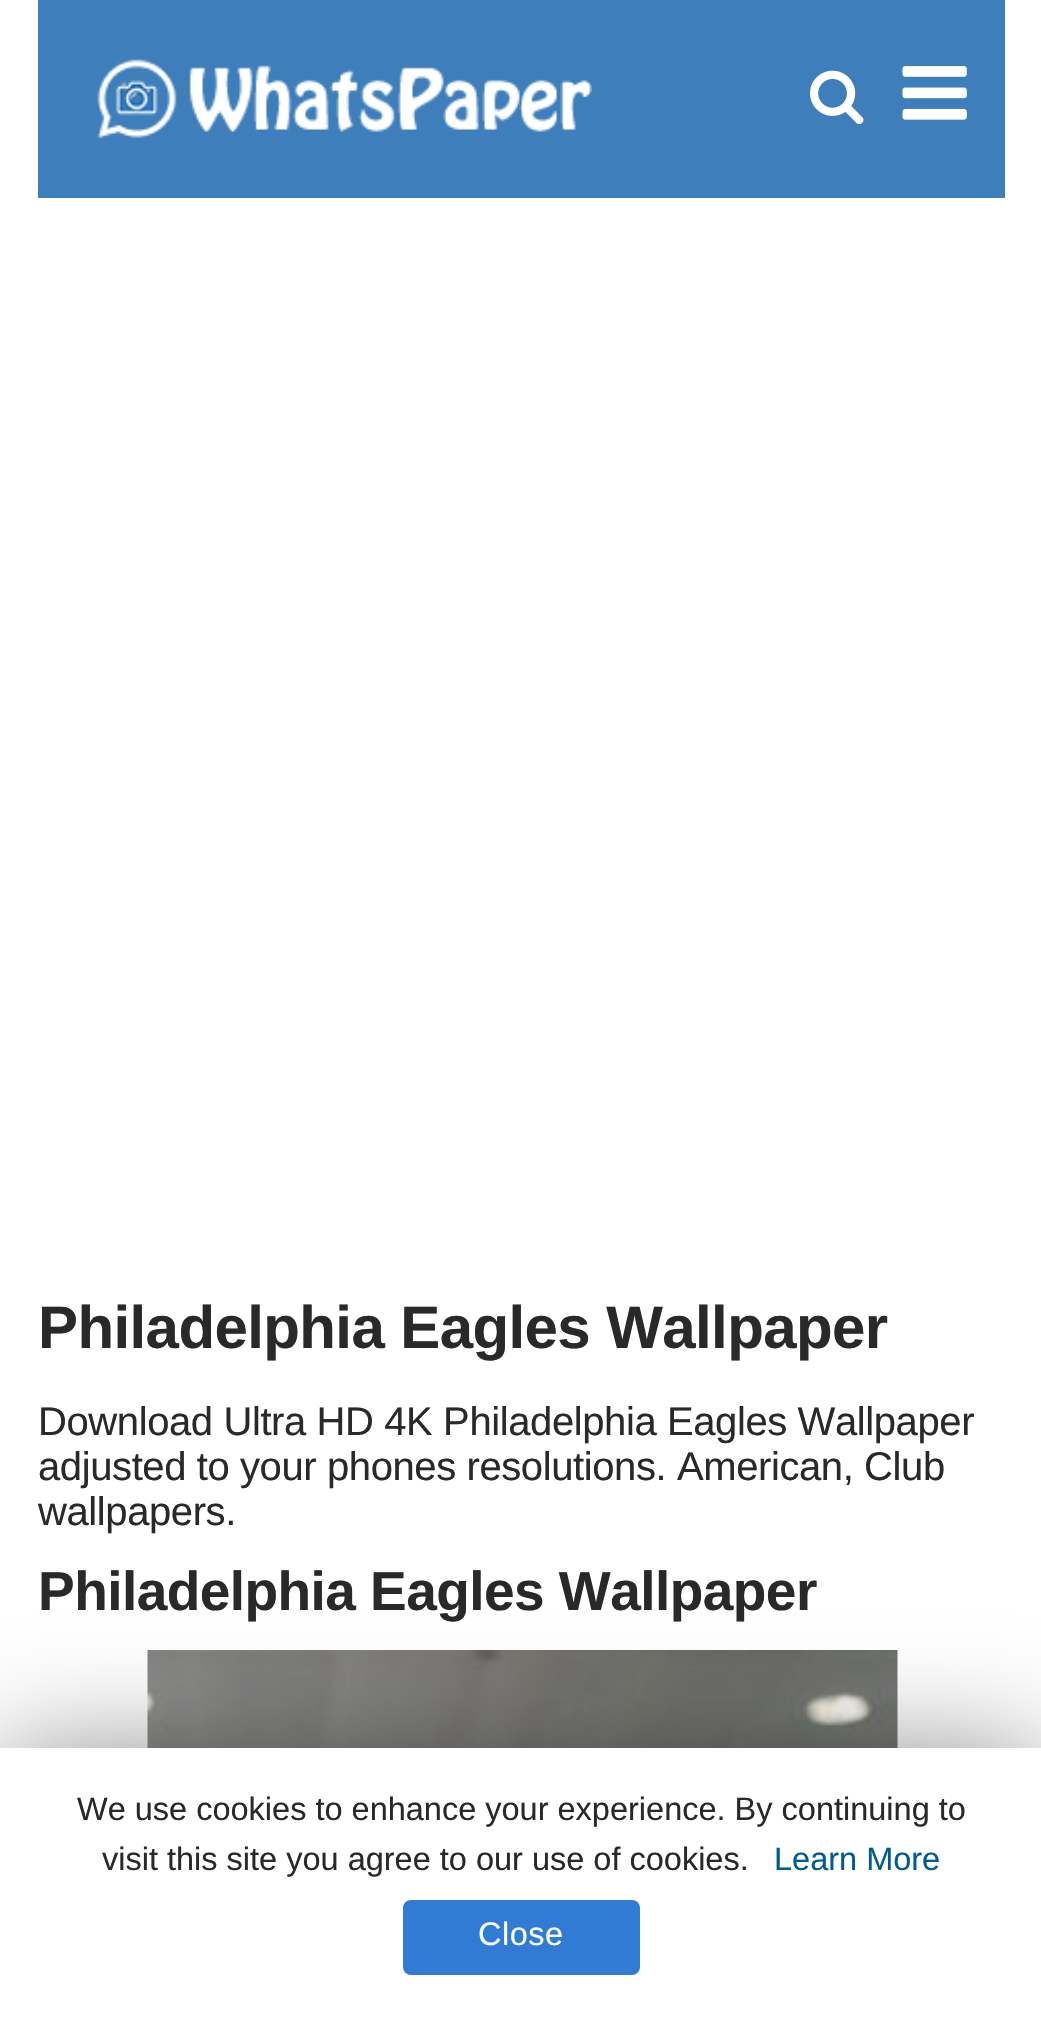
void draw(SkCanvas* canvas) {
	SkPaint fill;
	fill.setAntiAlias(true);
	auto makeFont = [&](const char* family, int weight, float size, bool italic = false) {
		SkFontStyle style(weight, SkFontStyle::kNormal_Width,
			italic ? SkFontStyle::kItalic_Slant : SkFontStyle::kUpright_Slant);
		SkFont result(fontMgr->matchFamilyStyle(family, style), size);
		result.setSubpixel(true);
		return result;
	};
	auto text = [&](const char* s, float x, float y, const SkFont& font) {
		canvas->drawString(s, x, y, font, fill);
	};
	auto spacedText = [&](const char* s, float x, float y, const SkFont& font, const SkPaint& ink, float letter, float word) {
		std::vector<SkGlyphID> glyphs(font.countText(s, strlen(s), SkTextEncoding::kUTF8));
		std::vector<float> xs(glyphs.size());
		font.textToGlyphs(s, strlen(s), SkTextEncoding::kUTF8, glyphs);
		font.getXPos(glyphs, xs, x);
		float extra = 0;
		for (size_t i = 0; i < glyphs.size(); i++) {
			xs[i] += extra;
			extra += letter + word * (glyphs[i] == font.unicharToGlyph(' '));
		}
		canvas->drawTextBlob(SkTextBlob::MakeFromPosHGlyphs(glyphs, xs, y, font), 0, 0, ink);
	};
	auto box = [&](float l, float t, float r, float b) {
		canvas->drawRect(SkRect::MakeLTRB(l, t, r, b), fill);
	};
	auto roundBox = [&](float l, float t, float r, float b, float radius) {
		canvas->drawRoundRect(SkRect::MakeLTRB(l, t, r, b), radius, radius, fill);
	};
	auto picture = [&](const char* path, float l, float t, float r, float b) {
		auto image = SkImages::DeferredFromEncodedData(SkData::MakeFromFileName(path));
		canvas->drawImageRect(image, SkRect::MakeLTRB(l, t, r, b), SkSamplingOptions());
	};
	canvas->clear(0xFFFFFFFF);
	fill.setColor(0xFF3E7EBA);
	box(38, 0, 1005, 198);
	picture("image0.png", 97, 59, 593, 139);
	picture("image1.png", 810, 70, 864, 125);
	picture("image2.png", 902, 66, 967, 120);
	picture("image3.png", 147, 1650, 898, 1748);
	fill.setColor(0x80000000);
	fill.setMaskFilter(SkMaskFilter::MakeBlur(kNormal_SkBlurStyle, 62.5f));
	canvas->drawRect(SkRect::MakeLTRB(0, 1760, 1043, 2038), fill);
	fill.setMaskFilter(nullptr);
	fill.setColor(0xFFFFFFFF);
	box(0, 1748, 1041, 2023);
	fill.setColor(0xFF317BD5);
	roundBox(403, 1900, 640, 1975, 8);
	auto font1 = makeFont("Liberation Sans", 700, 60);
	fill.setColor(0xFF292929);
	spacedText("Philadelphia Eagles Wallpaper", 38, 1348, font1, fill, -0.6f, 0);
	auto font2 = makeFont("Liberation Sans", 400, 40);
	spacedText("Download Ultra HD 4K Philadelphia Eagles Wallpaper", 38, 1435, font2, fill, -0.4f, 0);
	spacedText("adjusted to your phones resolutions. American, Club", 38, 1480, font2, fill, -0.4f, 0);
	spacedText("wallpapers.", 38, 1525, font2, fill, -0.4f, 0);
	auto font3 = makeFont("Liberation Sans", 700, 55);
	spacedText("Philadelphia Eagles Wallpaper", 38, 1610, font3, fill, -0.55f, 0);
	auto font4 = makeFont("Liberation Sans", 400, 32.5f);
	text("We use cookies to enhance your experience. By continuing to", 77, 1820, font4);
	text("visit this site you agree to our use of cookies.", 102, 1870, font4);
	fill.setColor(0xFF005B90);
	text("Learn More", 774, 1870, font4);
	fill.setColor(0xFFFFFFFF);
	spacedText("Close", 478, 1945, font4, fill, 0.5f, 0);
}
